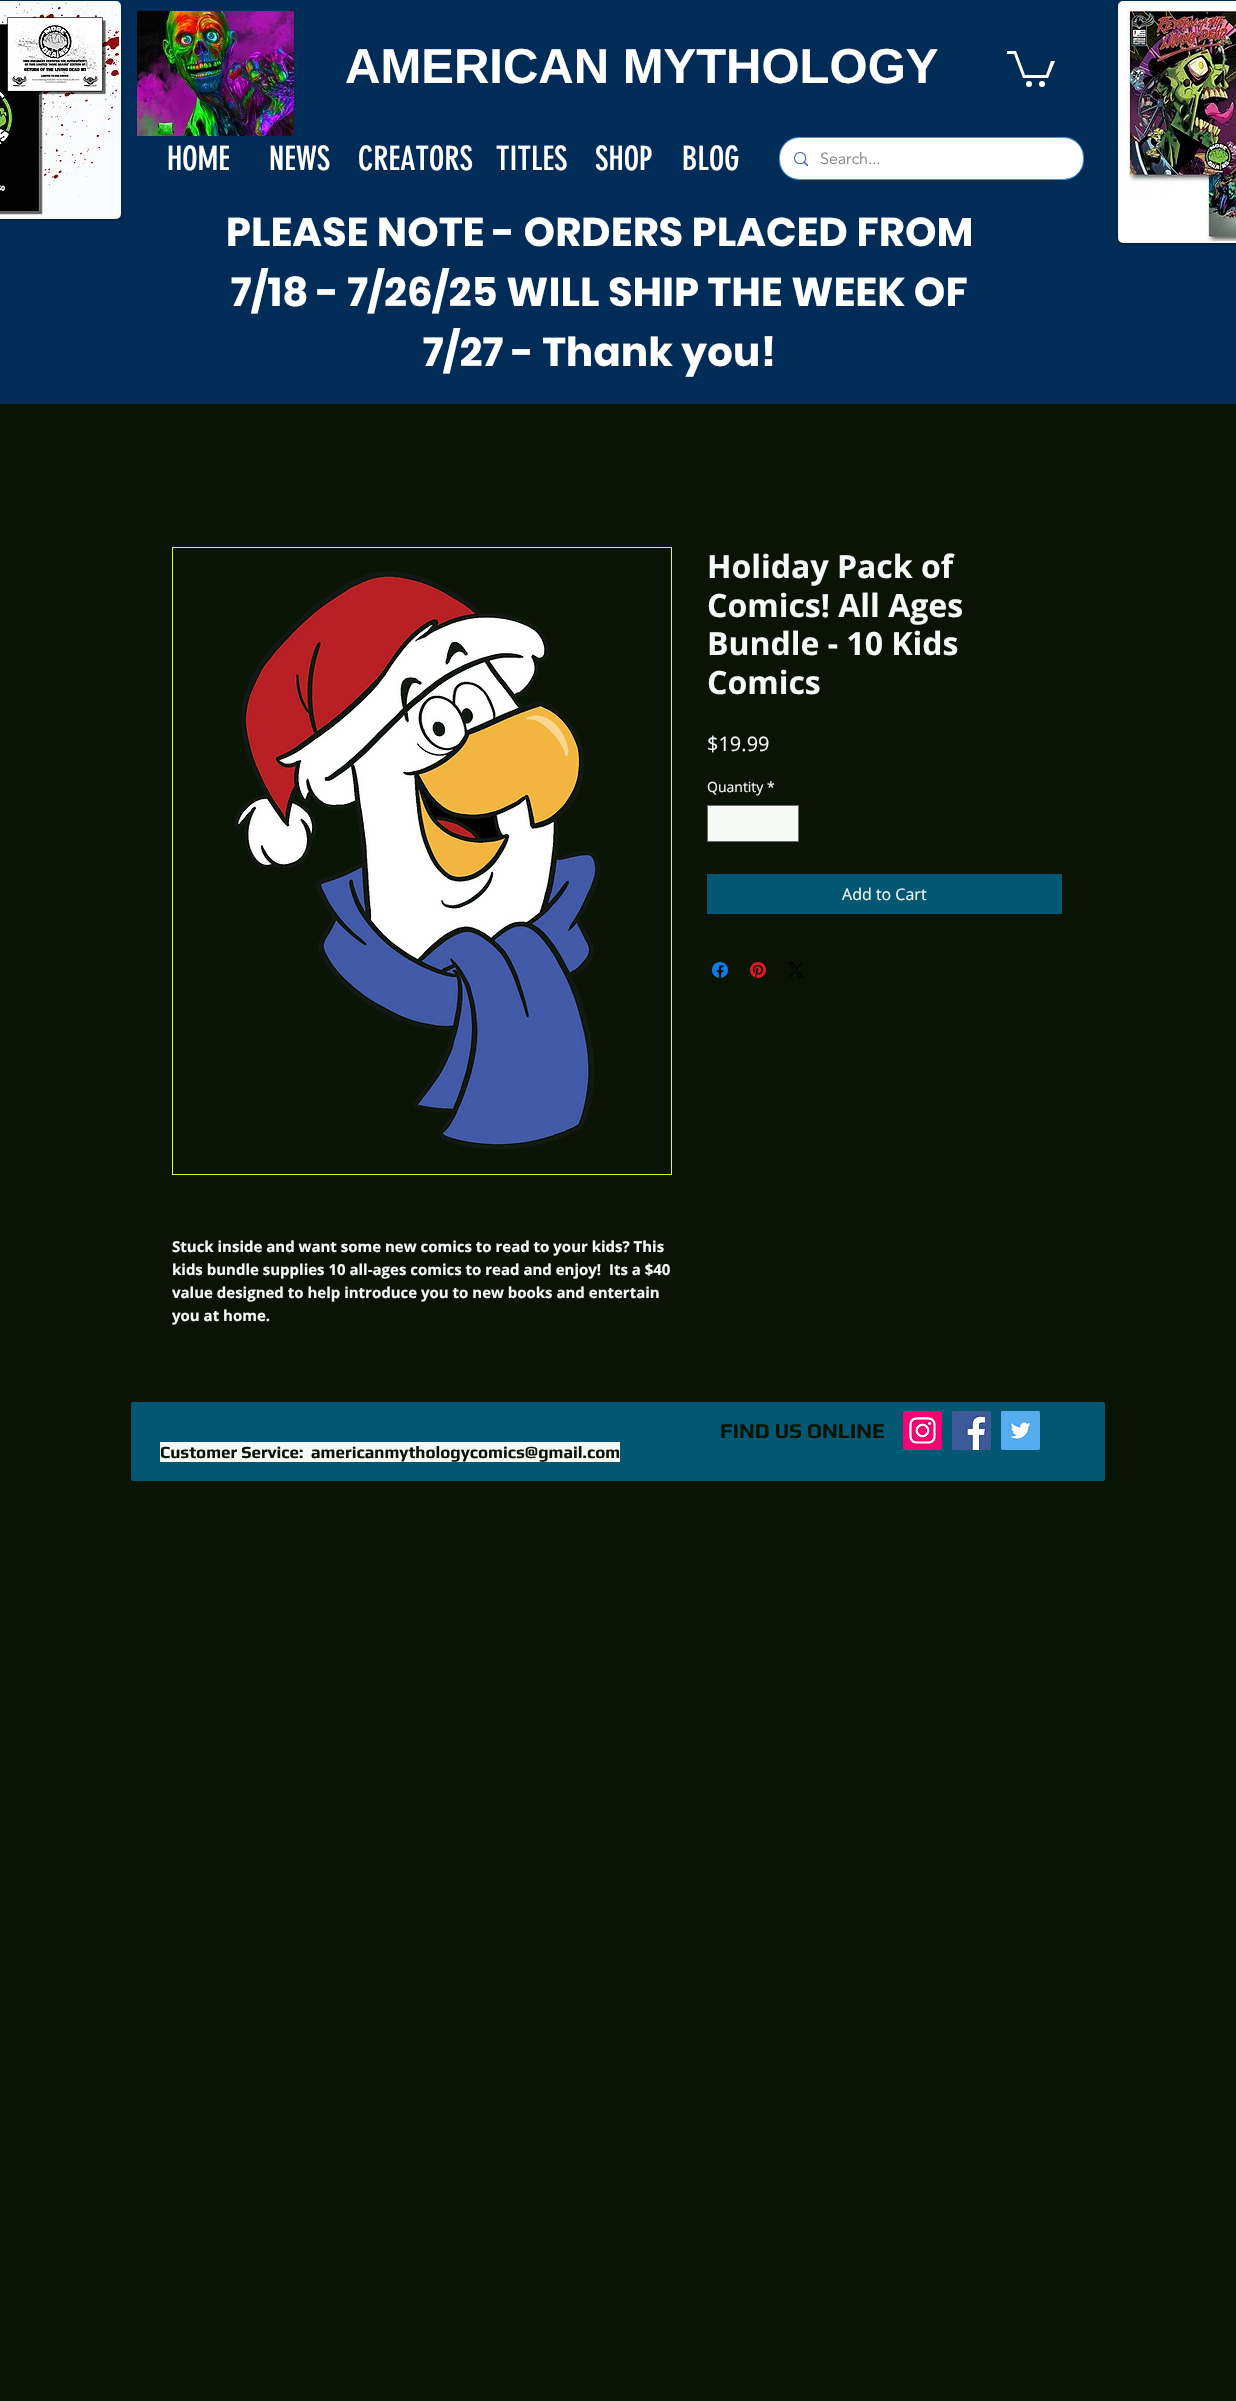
void draw(SkCanvas* canvas) {
	SkPaint fill;
	fill.setAntiAlias(true);
	auto makeFont = [&](const char* family, int weight, float size, bool italic = false) {
		SkFontStyle style(weight, SkFontStyle::kNormal_Width,
			italic ? SkFontStyle::kItalic_Slant : SkFontStyle::kUpright_Slant);
		SkFont result(fontMgr->matchFamilyStyle(family, style), size);
		result.setSubpixel(true);
		return result;
	};
	auto text = [&](const char* s, float x, float y, const SkFont& font) {
		canvas->drawString(s, x, y, font, fill);
	};
	auto spacedText = [&](const char* s, float x, float y, const SkFont& font, const SkPaint& ink, float letter, float word) {
		std::vector<SkGlyphID> glyphs(font.countText(s, strlen(s), SkTextEncoding::kUTF8));
		std::vector<float> xs(glyphs.size());
		font.textToGlyphs(s, strlen(s), SkTextEncoding::kUTF8, glyphs);
		font.getXPos(glyphs, xs, x);
		float extra = 0;
		for (size_t i = 0; i < glyphs.size(); i++) {
			xs[i] += extra;
			extra += letter + word * (glyphs[i] == font.unicharToGlyph(' '));
		}
		canvas->drawTextBlob(SkTextBlob::MakeFromPosHGlyphs(glyphs, xs, y, font), 0, 0, ink);
	};
	auto box = [&](float l, float t, float r, float b) {
		canvas->drawRect(SkRect::MakeLTRB(l, t, r, b), fill);
	};
	auto roundBox = [&](float l, float t, float r, float b, float radius) {
		canvas->drawRoundRect(SkRect::MakeLTRB(l, t, r, b), radius, radius, fill);
	};
	auto picture = [&](const char* path, float l, float t, float r, float b) {
		auto image = SkImages::DeferredFromEncodedData(SkData::MakeFromFileName(path));
		canvas->drawImageRect(image, SkRect::MakeLTRB(l, t, r, b), SkSamplingOptions());
	};
	canvas->clear(0xFF091405);
	fill.setColor(0xFF012C57);
	box(0, 0, 1236, 404);
	fill.setColor(0x80000000);
	fill.setMaskFilter(SkMaskFilter::MakeBlur(kNormal_SkBlurStyle, 1.5f));
	canvas->drawRoundRect(SkRect::MakeLTRB(-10, 2, 121, 220), 5, 5, fill);
	fill.setMaskFilter(nullptr);
	fill.setColor(0xFFF6F9F5);
	canvas->drawRoundRect(SkRect::MakeLTRB(-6, 2, 120, 218), 4, 4, fill);
	fill.setStyle(SkPaint::kStroke_Style);
	fill.setStrokeWidth(2);
	canvas->drawRoundRect(SkRect::MakeLTRB(-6, 2, 120, 218), 4, 4, fill);
	picture("image0.png", 0, 3, 119, 217);
	picture("image1.png", 137, 11, 294, 136);
	fill.setStyle(SkPaint::kFill_Style);
	fill.setColor(0xFFFFFFFF);
	canvas->drawPath(SkPathBuilder().moveTo(1055, 61).lineTo(1048, 78).lineTo(1023, 78).lineTo(1014, 54).lineTo(1007, 54).lineTo(1007, 51).lineTo(1016, 51).lineTo(1025, 75).lineTo(1046, 75).lineTo(1051, 61).detach(), fill);
	canvas->drawCircle(1042, 84, 3, fill);
	canvas->drawCircle(1029, 84, 3, fill);
	fill.setColor(0x80000000);
	fill.setMaskFilter(SkMaskFilter::MakeBlur(kNormal_SkBlurStyle, 1.5f));
	canvas->drawRoundRect(SkRect::MakeLTRB(1118, 2, 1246, 244), 5, 5, fill);
	fill.setMaskFilter(nullptr);
	fill.setColor(0xFFF6F9F5);
	canvas->drawRoundRect(SkRect::MakeLTRB(1119, 2, 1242, 242), 4, 4, fill);
	fill.setStyle(SkPaint::kStroke_Style);
	canvas->drawRoundRect(SkRect::MakeLTRB(1119, 2, 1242, 242), 4, 4, fill);
	picture("image2.png", 1120, 3, 1236, 241);
	fill.setStrokeWidth(1);
	fill.setColor(0xFF3D9BE9);
	canvas->drawRoundRect(SkRect::MakeLTRB(779.5f, 137.5f, 1083.5f, 179.5f), 19.5f, 19.5f, fill);
	fill.setStyle(SkPaint::kFill_Style);
	fill.setColor(0xFFFFFFFF);
	roundBox(780, 138, 1083, 179, 19);
	picture("image3.png", 794, 152, 808, 166);
	fill.setColor(0xFFF6F9F5);
	canvas->drawRect(SkRect::MakeLTRB(707.5f, 805.5f, 798.5f, 841.5f), fill);
	fill.setStyle(SkPaint::kStroke_Style);
	fill.setColor(0xFF687065);
	canvas->drawRect(SkRect::MakeLTRB(707.5f, 805.5f, 798.5f, 841.5f), fill);
	fill.setStyle(SkPaint::kFill_Style);
	fill.setColor(0xFF035772);
	box(707, 874, 1062, 914);
	picture("image4.png", 712, 962, 728, 978);
	picture("image5.png", 750, 962, 766, 978);
	picture("image6.png", 788, 962, 804, 978);
	fill.setStyle(SkPaint::kStroke_Style);
	fill.setColor(0xFFE0FD2C);
	canvas->drawRect(SkRect::MakeLTRB(172.5f, 547.5f, 671.5f, 1174.5f), fill);
	picture("image7.png", 234, 571, 600, 1150);
	fill.setStyle(SkPaint::kFill_Style);
	fill.setColor(0xFF035772);
	canvas->drawRoundRect(SkRect::MakeLTRB(129.5f, 1400.5f, 1106.5f, 1482.5f), 3.5f, 3.5f, fill);
	fill.setStyle(SkPaint::kStroke_Style);
	fill.setStrokeWidth(3);
	fill.setColor(0xFF091405);
	canvas->drawRoundRect(SkRect::MakeLTRB(129.5f, 1400.5f, 1106.5f, 1482.5f), 3.5f, 3.5f, fill);
	picture("image8.png", 903, 1411, 942, 1450);
	picture("image9.png", 952, 1411, 991, 1450);
	picture("image10.png", 1001, 1411, 1040, 1450);
	fill.setStyle(SkPaint::kFill_Style);
	fill.setColor(0xFFF6F9F5);
	box(160, 1442, 620, 1462);
	auto font1 = makeFont("Liberation Sans", 700, 49);
	fill.setColor(0xFFFFFFFF);
	text("AMERICAN MYTHOLOGY", 345, 83, font1);
	auto font2 = makeFont("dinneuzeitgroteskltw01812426", 400, 33);
	text("HOME", 167, 170, font2);
	text("NEWS", 269, 170, font2);
	text("CREATORS", 358, 170, font2);
	text("TITLES", 496, 170, font2);
	text("SHOP", 595, 170, font2);
	text("BLOG", 682, 170, font2);
	auto font3 = makeFont("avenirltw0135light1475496", 300, 16);
	fill.setColor(0xFF787878);
	text("Search...", 820, 164, font3);
	auto font4 = makeFont("Poppins", 700, 40);
	fill.setColor(0xFFFFFFFF);
	spacedText("PLEASE NOTE - ORDERS PLACED FROM", 226, 246, font4, fill, 0.4f, 0);
	spacedText("7/18 - 7/26/25 WILL SHIP THE WEEK OF", 231, 306, font4, fill, 0.4f, 0);
	spacedText("7/27 - Thank you!", 423, 366, font4, fill, 0.4f, 0);
	auto font5 = makeFont("Open Sans", 700, 32);
	fill.setColor(0xFFF6F9F5);
	text("Holiday Pack of", 707, 578, font5);
	text("Comics! All Ages", 707, 617, font5);
	text("Bundle - 10 Kids", 707, 655, font5);
	text("Comics", 707, 694, font5);
	auto font6 = makeFont("Open Sans", 400, 20);
	text("$19.99", 707, 751, font6);
	auto font7 = makeFont("Open Sans", 400, 14);
	text("Quantity", 707, 792, font7);
	text("*", 767, 792, font7);
	auto font8 = makeFont("Open Sans", 400, 16);
	text("Add to Cart", 842, 900, font8);
	auto font9 = makeFont("Open Sans", 700, 15);
	text("Stuck inside and want some new comics to read to your kids? This", 172, 1252, font9);
	text("kids bundle supplies 10 all-ages comics to read and enjoy!  Its a $40", 172, 1275, font9);
	text("value designed to help introduce you to new books and entertain", 172, 1298, font9);
	text("you at home.", 172, 1321, font9);
	auto font10 = makeFont("Play", 700, 21);
	fill.setColor(0xFF091405);
	text("FIND US ONLINE", 720, 1438, font10);
	auto font11 = makeFont("Play", 700, 17);
	text("Customer Service:", 160, 1458, font11);
	text("americanmythologycomics@gmail.com", 311, 1458, font11);
}
